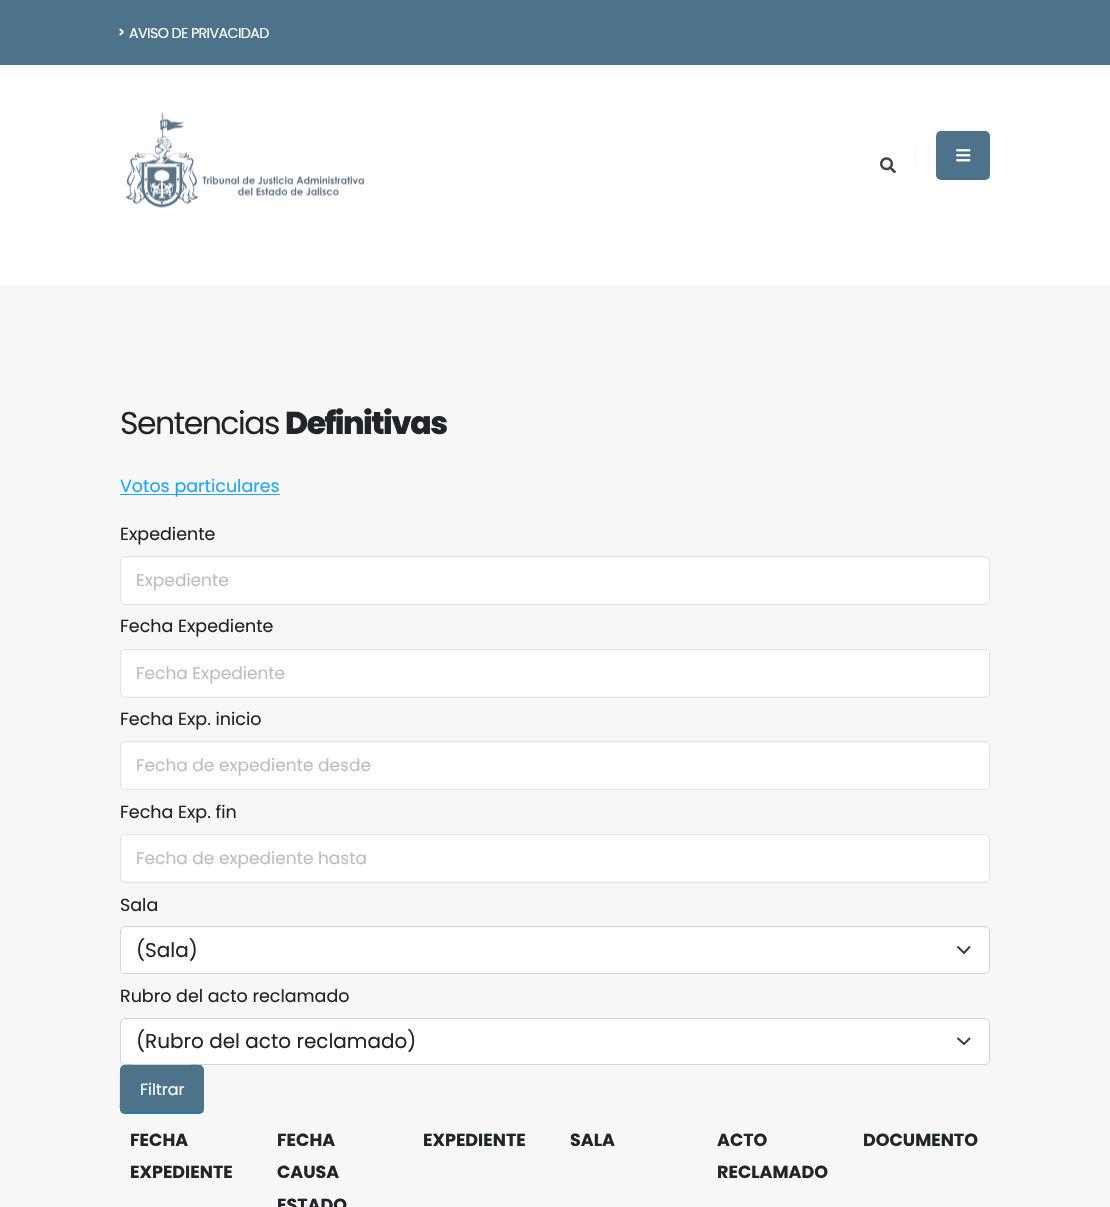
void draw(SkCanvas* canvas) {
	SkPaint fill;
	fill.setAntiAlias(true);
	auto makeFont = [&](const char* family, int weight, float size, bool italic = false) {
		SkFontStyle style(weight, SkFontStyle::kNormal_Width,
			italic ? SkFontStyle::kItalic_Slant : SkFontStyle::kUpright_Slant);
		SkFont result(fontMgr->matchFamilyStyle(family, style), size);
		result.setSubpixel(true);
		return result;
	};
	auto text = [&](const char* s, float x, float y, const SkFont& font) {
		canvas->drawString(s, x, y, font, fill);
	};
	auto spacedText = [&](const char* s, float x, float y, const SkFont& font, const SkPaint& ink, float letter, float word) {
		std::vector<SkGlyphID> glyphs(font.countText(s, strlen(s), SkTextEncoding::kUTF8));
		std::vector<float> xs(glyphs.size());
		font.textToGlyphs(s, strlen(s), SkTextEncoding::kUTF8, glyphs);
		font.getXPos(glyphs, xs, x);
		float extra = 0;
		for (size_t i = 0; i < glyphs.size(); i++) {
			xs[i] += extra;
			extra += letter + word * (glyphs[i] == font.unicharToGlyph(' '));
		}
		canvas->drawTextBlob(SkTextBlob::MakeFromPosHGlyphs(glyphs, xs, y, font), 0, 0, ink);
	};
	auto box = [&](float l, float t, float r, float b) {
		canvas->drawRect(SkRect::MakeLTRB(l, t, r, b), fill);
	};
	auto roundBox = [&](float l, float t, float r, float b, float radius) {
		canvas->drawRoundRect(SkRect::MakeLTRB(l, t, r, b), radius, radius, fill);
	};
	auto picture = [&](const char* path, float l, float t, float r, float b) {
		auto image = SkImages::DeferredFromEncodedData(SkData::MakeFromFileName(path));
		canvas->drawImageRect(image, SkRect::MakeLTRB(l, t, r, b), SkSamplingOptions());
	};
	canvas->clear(0xFFFFFFFF);
	fill.setColor(0xFF4D738A);
	box(0, 0, 1110, 65);
	picture("image0.png", 119, 28, 124, 36);
	picture("image1.png", 125, 112, 364, 208);
	picture("image2.png", 880, 157, 896, 174);
	fill.setColor(0xFFF7F7F7);
	box(915, 146, 916, 166);
	fill.setColor(0xFF4D738A);
	roundBox(936, 131, 990, 180, 5);
	picture("image3.png", 956, 149, 971, 162);
	fill.setColor(0xFFF7F7F7);
	box(0, 285, 1110, 1207);
	fill.setColor(0xFF20A6F7);
	box(120, 494, 280, 495);
	fill.setColor(0xFFFFFFFF);
	roundBox(121, 558, 989, 604, 4);
	fill.setStyle(SkPaint::kStroke_Style);
	fill.setStrokeWidth(1);
	fill.setColor(0xFFE1E1E1);
	canvas->drawRoundRect(SkRect::MakeLTRB(120.5f, 556.5f, 989.5f, 604.5f), 4.5f, 4.5f, fill);
	fill.setStyle(SkPaint::kFill_Style);
	fill.setColor(0xFFFFFFFF);
	roundBox(121, 650, 989, 696, 4);
	fill.setStyle(SkPaint::kStroke_Style);
	fill.setColor(0xFFE1E1E1);
	canvas->drawRoundRect(SkRect::MakeLTRB(120.5f, 649.5f, 989.5f, 697.5f), 4.5f, 4.5f, fill);
	fill.setStyle(SkPaint::kFill_Style);
	fill.setColor(0xFFFFFFFF);
	roundBox(121, 743, 989, 789, 4);
	fill.setStyle(SkPaint::kStroke_Style);
	fill.setColor(0xFFE1E1E1);
	canvas->drawRoundRect(SkRect::MakeLTRB(120.5f, 741.5f, 989.5f, 789.5f), 4.5f, 4.5f, fill);
	fill.setStyle(SkPaint::kFill_Style);
	fill.setColor(0xFFFFFFFF);
	roundBox(121, 835, 989, 881, 4);
	fill.setStyle(SkPaint::kStroke_Style);
	fill.setColor(0xFFE1E1E1);
	canvas->drawRoundRect(SkRect::MakeLTRB(120.5f, 834.5f, 989.5f, 882.5f), 4.5f, 4.5f, fill);
	fill.setStyle(SkPaint::kFill_Style);
	fill.setColor(0xFFFFFFFF);
	roundBox(120, 926, 990, 974, 5);
	fill.setStyle(SkPaint::kStroke_Style);
	fill.setStrokeWidth(1.9f);
	fill.setStrokeCap(SkPaint::kRound_Cap);
	fill.setStrokeJoin(SkPaint::kRound_Join);
	fill.setColor(0xFF343A40);
	canvas->drawPath(SkPathBuilder().moveTo(958, 947).lineTo(964, 953).lineTo(969.5f, 947).detach(), fill);
	fill.setStrokeWidth(1);
	fill.setStrokeCap(SkPaint::kButt_Cap);
	fill.setStrokeJoin(SkPaint::kMiter_Join);
	fill.setColor(0xFFCED4DA);
	canvas->drawRoundRect(SkRect::MakeLTRB(120.5f, 926.5f, 989.5f, 973.5f), 4.5f, 4.5f, fill);
	fill.setStyle(SkPaint::kFill_Style);
	fill.setColor(0xFFFFFFFF);
	roundBox(120, 1018, 990, 1065, 5);
	fill.setStyle(SkPaint::kStroke_Style);
	fill.setStrokeWidth(1.9f);
	fill.setStrokeCap(SkPaint::kRound_Cap);
	fill.setStrokeJoin(SkPaint::kRound_Join);
	fill.setColor(0xFF343A40);
	canvas->drawPath(SkPathBuilder().moveTo(958, 1038.5f).lineTo(964, 1044).lineTo(969.5f, 1038.5f).detach(), fill);
	fill.setStrokeWidth(1);
	fill.setStrokeCap(SkPaint::kButt_Cap);
	fill.setStrokeJoin(SkPaint::kMiter_Join);
	fill.setColor(0xFFCED4DA);
	canvas->drawRoundRect(SkRect::MakeLTRB(120.5f, 1018.5f, 989.5f, 1064.5f), 4.5f, 4.5f, fill);
	fill.setStyle(SkPaint::kFill_Style);
	fill.setColor(0xFF4D738A);
	roundBox(120, 1065, 204, 1114, 5);
	fill.setStyle(SkPaint::kStroke_Style);
	fill.setStrokeWidth(1.2f);
	fill.setColor(0xFF077DC3);
	canvas->drawPath(SkPathBuilder().moveTo(202, 1112).lineTo(199, 1113).lineTo(124.5f, 1113).lineTo(122, 1112).detach(), fill);
	fill.setColor(0xFF4D738A);
	canvas->drawPath(SkPathBuilder().moveTo(122, 1112).cubicTo(119.5f, 1109.5f, 120.5f, 1104.5f, 120.5f, 1102.5f).lineTo(120.5f, 1076.5f).cubicTo(120.5f, 1062.5f, 122, 1065.5f, 137.5f, 1065.5f).lineTo(186.5f, 1065.5f).cubicTo(201.5f, 1065.5f, 203, 1062.5f, 203, 1076.5f).lineTo(203, 1102.5f).cubicTo(203, 1104.5f, 204, 1109.5f, 202, 1112).detach(), fill);
	auto font1 = makeFont("Poppins", 400, 14.25f);
	fill.setStyle(SkPaint::kFill_Style);
	fill.setColor(0xFFFFFFFF);
	spacedText("AVISO DE PRIVACIDAD", 129, 38, font1, fill, -0.6f, 0);
	auto font2 = makeFont("Poppins", 400, 31.5f);
	fill.setColor(0xFF212529);
	spacedText("Sentencias", 120, 434, font2, fill, -1.5f, 0);
	auto font3 = makeFont("Poppins", 800, 31.5f);
	spacedText("Definitivas", 285, 434, font3, fill, -1.5f, 0);
	auto font4 = makeFont("Poppins", 400, 17.5f);
	fill.setColor(0xFF20A6F7);
	text("Votos particulares", 120, 492, font4);
	fill.setColor(0xFF222222);
	text("Expediente", 120, 540, font4);
	auto font5 = makeFont("Poppins", 400, 17);
	fill.setColor(0xFFBDBDBD);
	text("Expediente", 136, 586, font5);
	fill.setColor(0xFF222222);
	text("Fecha Expediente", 120, 632, font4);
	fill.setColor(0xFFBDBDBD);
	text("Fecha Expediente", 136, 679, font5);
	fill.setColor(0xFF222222);
	text("Fecha Exp. inicio", 120, 725, font4);
	fill.setColor(0xFFBDBDBD);
	text("Fecha de expediente desde", 136, 771, font5);
	fill.setColor(0xFF222222);
	text("Fecha Exp. fin", 120, 818, font4);
	fill.setColor(0xFFBDBDBD);
	text("Fecha de expediente hasta", 136, 864, font5);
	fill.setColor(0xFF222222);
	text("Sala", 120, 911, font4);
	auto font6 = makeFont("Poppins", 400, 20);
	fill.setColor(0xFF212529);
	text("(Sala)", 136, 957, font6);
	fill.setColor(0xFF222222);
	text("Rubro del acto reclamado", 120, 1002, font4);
	fill.setColor(0xFF212529);
	text("(Rubro del acto reclamado)", 136, 1048, font6);
	auto font7 = makeFont("Poppins", 400, 16);
	fill.setColor(0xFFFFFFFF);
	text("Filtrar", 140, 1095, font7);
	auto font8 = makeFont("Poppins", 700, 17.5f);
	fill.setColor(0xFF212529);
	text("FECHA", 130, 1146, font8);
	text("EXPEDIENTE", 130, 1178, font8);
	text("FECHA", 277, 1146, font8);
	text("CAUSA", 277, 1178, font8);
	text("ESTADO", 277, 1211, font8);
	text("EXPEDIENTE", 423, 1146, font8);
	text("SALA", 570, 1146, font8);
	text("ACTO", 717, 1146, font8);
	text("RECLAMADO", 717, 1178, font8);
	text("DOCUMENTO", 863, 1146, font8);
}
